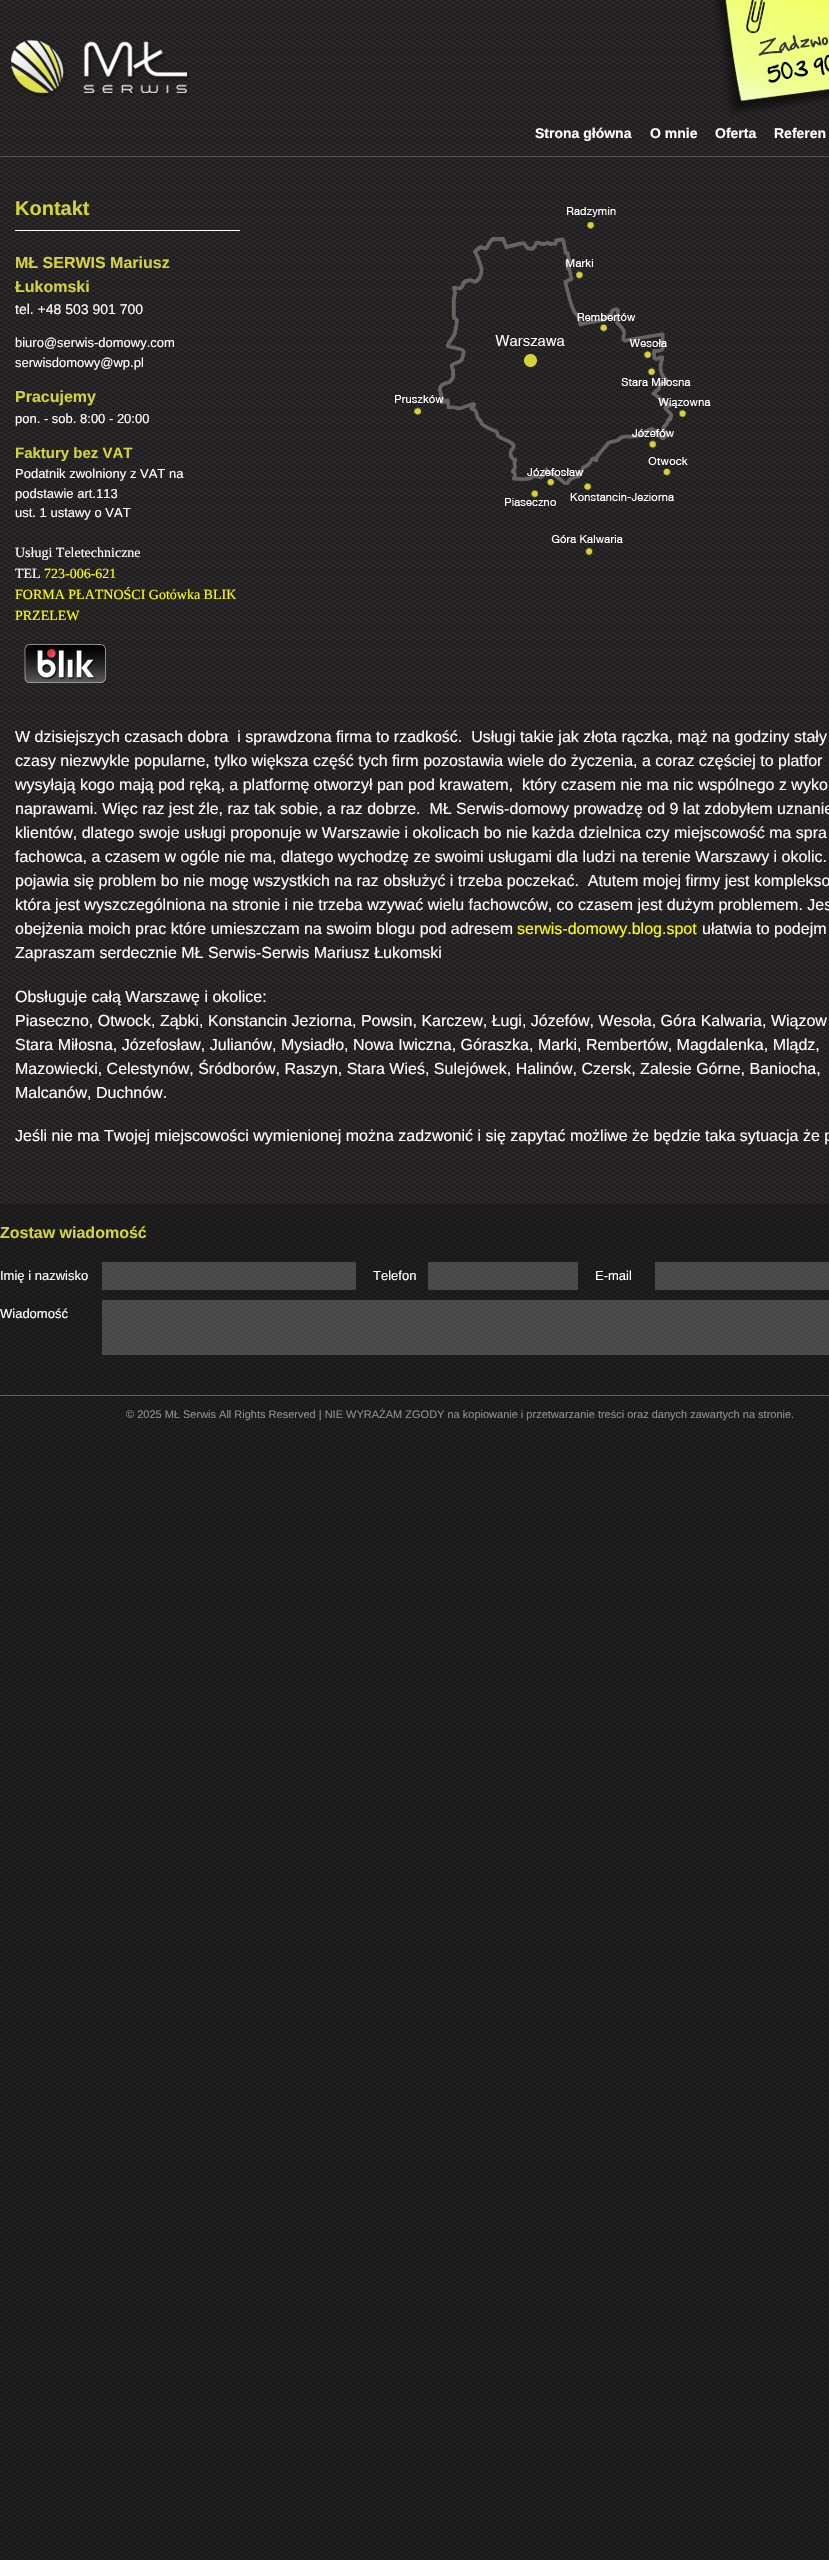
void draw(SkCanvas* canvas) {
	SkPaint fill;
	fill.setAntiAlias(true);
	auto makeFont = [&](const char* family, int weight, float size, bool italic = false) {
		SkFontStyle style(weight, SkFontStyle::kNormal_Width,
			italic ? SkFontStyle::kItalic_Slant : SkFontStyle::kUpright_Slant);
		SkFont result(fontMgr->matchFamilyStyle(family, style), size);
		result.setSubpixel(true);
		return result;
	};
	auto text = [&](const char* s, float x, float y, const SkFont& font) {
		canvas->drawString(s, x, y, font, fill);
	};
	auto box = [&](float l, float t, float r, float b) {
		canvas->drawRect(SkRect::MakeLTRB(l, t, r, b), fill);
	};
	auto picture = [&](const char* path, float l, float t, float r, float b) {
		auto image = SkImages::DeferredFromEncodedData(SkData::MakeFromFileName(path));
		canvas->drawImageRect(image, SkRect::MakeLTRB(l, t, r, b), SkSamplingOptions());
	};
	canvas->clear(0xFFFFFFFF);
	picture("image0.png", 0, 1204, 829, 2560);
	picture("image1.png", 0, 0, 829, 1204);
	fill.setColor(0x33FFFFFF);
	box(0, 156, 829, 157);
	picture("image2.png", 11, 40, 190, 97);
	picture("image3.png", 713, 0, 829, 114);
	fill.setColor(0xFFFFFFFF);
	box(15, 230, 240, 231);
	picture("image4.png", 24, 644, 106, 683);
	picture("image5.png", 395, 207, 711, 555);
	fill.setColor(0x33FFFFFF);
	box(102, 1262, 356, 1290);
	box(428, 1262, 578, 1290);
	box(655, 1262, 829, 1290);
	box(102, 1300, 829, 1355);
	fill.setColor(0xFF616161);
	box(0, 1395, 829, 1396);
	auto font1 = makeFont("Liberation Sans", 700, 14);
	fill.setColor(0xFFFFFFFF);
	text("Strona główna", 535, 138, font1);
	text("O mnie", 650, 138, font1);
	text("Oferta", 715, 138, font1);
	text("Referen", 774, 138, font1);
	auto font2 = makeFont("Liberation Sans", 700, 20);
	fill.setColor(0xFFD5D33A);
	text("Kontakt", 15, 215, font2);
	auto font3 = makeFont("Liberation Sans", 700, 16);
	text("MŁ SERWIS Mariusz", 15, 268, font3);
	text("Łukomski", 15, 292, font3);
	auto font4 = makeFont("Liberation Sans", 400, 14);
	fill.setColor(0xFFFFFFFF);
	text("tel. +48 503 901 700", 15, 314, font4);
	auto font5 = makeFont("Liberation Sans", 400, 13);
	text("biuro@serwis-domowy.com", 15, 347, font5);
	text("serwisdomowy@wp.pl", 15, 367, font5);
	fill.setColor(0xFFD5D33A);
	text("Pracujemy", 15, 402, font3);
	fill.setColor(0xFFFFFFFF);
	text("pon. - sob. 8:00 - 20:00", 15, 423, font5);
	auto font6 = makeFont("Liberation Sans", 700, 15);
	fill.setColor(0xFFD5D33A);
	text("Faktury bez VAT", 15, 458, font6);
	fill.setColor(0xFFFFFFFF);
	text("Podatnik zwolniony z VAT na", 15, 478, font5);
	text("podstawie art.113", 15, 498, font5);
	text("ust. 1 ustawy o VAT", 15, 517, font5);
	auto font7 = makeFont("Liberation Serif", 400, 14);
	text("Usługi Teletechniczne", 15, 557, font7);
	text("TEL", 15, 578, font7);
	fill.setColor(0xFFFFFF00);
	text("723-006-621", 44, 578, font7);
	text("FORMA PŁATNOŚCI Gotówka BLIK", 15, 599, font7);
	text("PRZELEW", 15, 620, font7);
	auto font8 = makeFont("Liberation Sans", 400, 16);
	fill.setColor(0xFFFFFFFF);
	text("W dzisiejszych czasach dobra  i sprawdzona firma to rzadkość.  Usługi takie jak złota rączka, mąż na godziny stały", 15, 742, font8);
	text("czasy niezwykle popularne, tylko większa część tych firm pozostawia wiele do życzenia, a coraz częściej to platfor", 15, 766, font8);
	text("wysyłają kogo mają pod ręką, a platformę otworzył pan pod krawatem,  który czasem nie ma nic wspólnego z wyko", 15, 790, font8);
	text("naprawami. Więc raz jest źle, raz tak sobie, a raz dobrze.  MŁ Serwis-domowy prowadzę od 9 lat zdobyłem uznanie", 15, 814, font8);
	text("klientów, dlatego swoje usługi proponuje w Warszawie i okolicach bo nie każda dzielnica czy miejscowość ma spra", 15, 838, font8);
	text("fachowca, a czasem w ogóle nie ma, dlatego wychodzę ze swoimi usługami dla ludzi na terenie Warszawy i okolic.", 15, 862, font8);
	text("pojawia się problem bo nie mogę wszystkich na raz obsłużyć i trzeba poczekać.  Atutem mojej firmy jest komplekso", 15, 886, font8);
	text("która jest wyszczególniona na stronie i nie trzeba wzywać wielu fachowców, co czasem jest dużym problemem. Jes", 15, 910, font8);
	text("obejżenia moich prac które umieszczam na swoim blogu pod adresem", 15, 934, font8);
	fill.setColor(0xFFFFFF00);
	text("serwis-domowy.blog.spot", 517, 934, font8);
	fill.setColor(0xFFFFFFFF);
	text("ułatwia to podejm", 702, 934, font8);
	text("Zapraszam serdecznie MŁ Serwis-Serwis Mariusz Łukomski", 15, 958, font8);
	text("Obsługuje całą Warszawę i okolice:", 15, 1002, font8);
	text("Piaseczno, Otwock, Ząbki, Konstancin Jeziorna, Powsin, Karczew, Ługi, Józefów, Wesoła, Góra Kalwaria, Wiązow", 15, 1026, font8);
	text("Stara Miłosna, Józefosław, Julianów, Mysiadło, Nowa Iwiczna, Góraszka, Marki, Rembertów, Magdalenka, Mlądz,", 15, 1050, font8);
	text("Mazowiecki, Celestynów, Śródborów, Raszyn, Stara Wieś, Sulejówek, Halinów, Czersk, Zalesie Górne, Baniocha,", 15, 1074, font8);
	text("Malcanów, Duchnów.", 15, 1098, font8);
	text("Jeśli nie ma Twojej miejscowości wymienionej można zadzwonić i się zapytać możliwe że będzie taka sytuacja że p", 15, 1141, font8);
	fill.setColor(0xFFD5D33A);
	text("Zostaw wiadomość", 0, 1238, font3);
	fill.setColor(0xFFFFFFFF);
	text("Imię i nazwisko", 0, 1280, font5);
	text("Telefon", 373, 1280, font5);
	text("E-mail", 595, 1280, font5);
	text("Wiadomość", 0, 1318, font5);
	auto font9 = makeFont("Liberation Sans", 400, 11);
	fill.setColor(0xFF909090);
	text("© 2025 MŁ Serwis All Rights Reserved | NIE WYRAŻAM ZGODY na kopiowanie i przetwarzanie treści oraz danych zawartych na stronie.", 126, 1418, font9);
}
